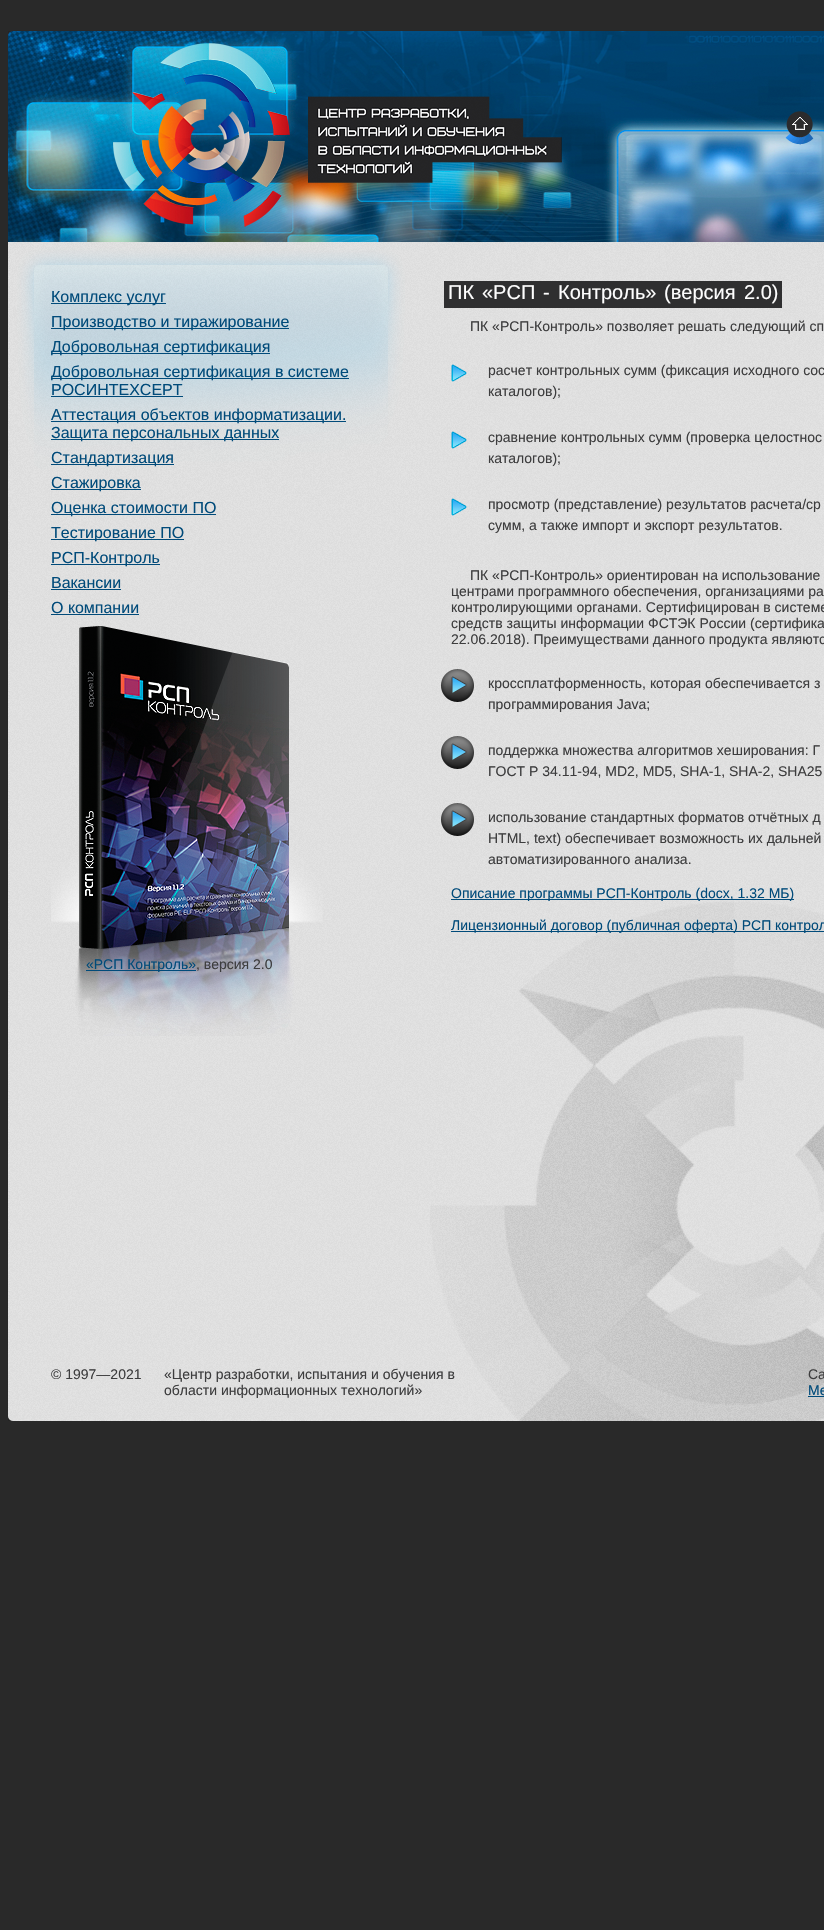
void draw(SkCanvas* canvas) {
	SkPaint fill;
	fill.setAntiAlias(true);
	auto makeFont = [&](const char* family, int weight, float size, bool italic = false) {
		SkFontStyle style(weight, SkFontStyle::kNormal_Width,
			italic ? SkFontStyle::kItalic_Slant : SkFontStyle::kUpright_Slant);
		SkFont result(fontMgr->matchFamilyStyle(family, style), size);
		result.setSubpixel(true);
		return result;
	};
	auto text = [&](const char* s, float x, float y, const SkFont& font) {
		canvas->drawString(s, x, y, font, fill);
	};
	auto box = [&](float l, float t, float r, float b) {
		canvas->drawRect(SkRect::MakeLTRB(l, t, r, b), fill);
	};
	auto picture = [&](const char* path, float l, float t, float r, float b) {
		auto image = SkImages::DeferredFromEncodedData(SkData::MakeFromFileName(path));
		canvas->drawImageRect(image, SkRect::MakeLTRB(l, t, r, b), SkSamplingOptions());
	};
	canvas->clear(0xFF292929);
	picture("image0.png", 8, 31, 824, 281);
	picture("image1.png", 113, 43, 562, 227);
	picture("image2.png", 785, 111, 814, 145);
	picture("image3.png", 8, 281, 824, 1421);
	picture("image4.png", 8, 281, 415, 514);
	fill.setColor(0xFF014B7A);
	box(51, 303, 166, 304);
	box(51, 328, 289, 329);
	box(51, 353, 270, 354);
	box(51, 378, 349, 379);
	box(51, 396, 183, 397);
	box(51, 421, 346, 422);
	box(51, 439, 279, 440);
	box(51, 464, 174, 465);
	box(51, 489, 141, 490);
	box(51, 514, 216, 515);
	box(51, 539, 184, 540);
	box(51, 564, 160, 565);
	box(51, 589, 121, 590);
	box(51, 614, 139, 615);
	picture("image5.png", 51, 625, 323, 1036);
	box(86, 970, 196, 971);
	fill.setColor(0xFF2F2F30);
	box(444, 281, 782, 308);
	picture("image6.png", 451, 364, 467, 382);
	picture("image7.png", 451, 431, 467, 449);
	picture("image8.png", 451, 498, 467, 516);
	picture("image9.png", 441, 669, 474, 702);
	picture("image10.png", 441, 736, 474, 769);
	picture("image11.png", 441, 803, 474, 836);
	fill.setColor(0xFF014B7A);
	box(451, 899, 794, 900);
	picture("image13.png", 430, 901, 824, 1421);
	box(451, 931, 824, 932);
	box(808, 1396, 824, 1397);
	picture("image12.png", 8, 1416, 13, 1421);
	auto font1 = makeFont("Liberation Sans", 400, 16);
	text("Комплекс услуг", 51, 302, font1);
	text("Производство и тиражирование", 51, 327, font1);
	text("Добровольная сертификация", 51, 352, font1);
	text("Добровольная сертификация в системе", 51, 377, font1);
	text("РОСИНТЕХСЕРТ", 51, 395, font1);
	text("Аттестация объектов информатизации.", 51, 420, font1);
	text("Защита персональных данных", 51, 438, font1);
	text("Стандартизация", 51, 463, font1);
	text("Стажировка", 51, 488, font1);
	text("Оценка стоимости ПО", 51, 513, font1);
	text("Тестирование ПО", 51, 538, font1);
	text("РСП-Контроль", 51, 563, font1);
	text("Вакансии", 51, 588, font1);
	text("О компании", 51, 613, font1);
	auto font2 = makeFont("Liberation Sans", 400, 14);
	text("«РСП Контроль»", 86, 969, font2);
	fill.setColor(0xFF3D3D3E);
	text(", версия 2.0", 196, 969, font2);
	auto font3 = makeFont("Liberation Sans", 400, 20);
	fill.setColor(0xFFFEFEFE);
	text("ПК", 448, 299, font3);
	text("«РСП", 482, 299, font3);
	text("-", 543, 299, font3);
	text("Контроль»", 558, 299, font3);
	text("(версия", 664, 299, font3);
	text("2.0)", 744, 299, font3);
	fill.setColor(0xFF3D3D3E);
	text("ПК «РСП-Контроль» позволяет решать следующий сп", 470, 331, font2);
	text("расчет контрольных сумм (фиксация исходного сос", 488, 375, font2);
	text("каталогов);", 488, 396, font2);
	text("сравнение контрольных сумм (проверка целостнос", 488, 442, font2);
	text("каталогов);", 488, 463, font2);
	text("просмотр (представление) результатов расчета/ср", 488, 509, font2);
	text("сумм, а также импорт и экспорт результатов.", 488, 530, font2);
	text("ПК «РСП-Контроль» ориентирован на использование", 470, 580, font2);
	text("центрами программного обеспечения, организациями ра", 451, 596, font2);
	text("контролирующими органами. Сертифицирован в системе", 451, 612, font2);
	text("средств защиты информации ФСТЭК России (сертифика", 451, 628, font2);
	text("22.06.2018). Преимуществами данного продукта являютс", 451, 644, font2);
	text("кроссплатформенность, которая обеспечивается з", 488, 688, font2);
	text("программирования Java;", 488, 709, font2);
	text("поддержка множества алгоритмов хеширования: Г", 488, 755, font2);
	text("ГОСТ Р 34.11-94, MD2, MD5, SHA-1, SHA-2, SHA25", 488, 776, font2);
	text("использование стандартных форматов отчётных д", 488, 822, font2);
	text("HTML, text) обеспечивает возможность их дальней", 488, 843, font2);
	text("автоматизированного анализа.", 488, 864, font2);
	fill.setColor(0xFF014B7A);
	text("Описание программы РСП-Контроль (docx, 1.32 МБ)", 451, 898, font2);
	text("Лицензионный договор (публичная оферта) РСП контрол", 451, 930, font2);
	fill.setColor(0xFF3D3D3E);
	text("© 1997—2021", 51, 1379, font2);
	text("«Центр разработки, испытания и обучения в", 164, 1379, font2);
	text("области информационных технологий»", 164, 1395, font2);
	text("Са", 808, 1379, font2);
	fill.setColor(0xFF014B7A);
	text("Me", 808, 1395, font2);
}
